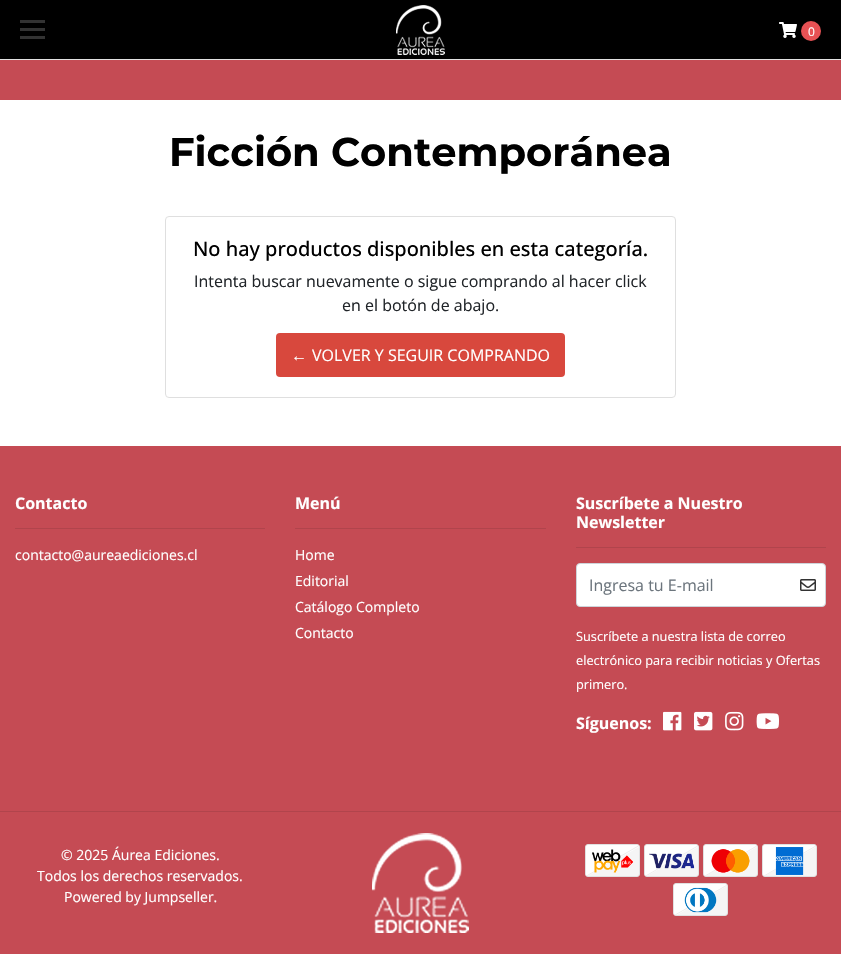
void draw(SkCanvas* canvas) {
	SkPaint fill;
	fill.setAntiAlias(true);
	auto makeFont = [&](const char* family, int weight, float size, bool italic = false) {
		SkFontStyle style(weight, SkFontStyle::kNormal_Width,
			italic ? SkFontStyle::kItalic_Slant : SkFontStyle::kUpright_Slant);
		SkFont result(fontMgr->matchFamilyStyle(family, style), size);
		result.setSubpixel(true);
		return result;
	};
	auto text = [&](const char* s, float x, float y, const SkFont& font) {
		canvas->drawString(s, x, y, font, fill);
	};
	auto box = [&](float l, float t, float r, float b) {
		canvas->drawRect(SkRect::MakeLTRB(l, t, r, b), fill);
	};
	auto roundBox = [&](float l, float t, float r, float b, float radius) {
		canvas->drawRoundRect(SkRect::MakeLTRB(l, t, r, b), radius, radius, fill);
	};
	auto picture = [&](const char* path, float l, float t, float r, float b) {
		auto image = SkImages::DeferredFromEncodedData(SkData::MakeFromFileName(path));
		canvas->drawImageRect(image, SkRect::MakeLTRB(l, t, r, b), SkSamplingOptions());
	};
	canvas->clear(0xFFFFFFFF);
	fill.setColor(0xFF000000);
	box(0, 0, 841, 59);
	fill.setColor(0xFF333333);
	box(20, 20, 45, 23);
	box(20, 28, 45, 31);
	box(20, 36, 45, 39);
	fill.setColor(0xFFE1E1E1);
	box(0, 59, 841, 60);
	picture("image0.png", 396, 5, 445, 55);
	picture("image1.png", 779, 22, 797, 38);
	fill.setColor(0xFFE75154);
	canvas->drawCircle(811, 31, 10, fill);
	fill.setColor(0xFFC54B54);
	box(0, 60, 841, 100);
	fill.setStyle(SkPaint::kStroke_Style);
	fill.setStrokeWidth(1);
	fill.setColor(0xFFDFDFDF);
	canvas->drawRoundRect(SkRect::MakeLTRB(165.5f, 216.5f, 675.5f, 397.5f), 3.5f, 3.5f, fill);
	fill.setStyle(SkPaint::kFill_Style);
	fill.setColor(0xFFD8483D);
	roundBox(276, 333, 565, 377, 4);
	fill.setColor(0xFFC54B54);
	box(0, 446, 841, 954);
	fill.setColor(0xFFB1444C);
	box(15, 528, 265, 529);
	box(295, 528, 546, 529);
	box(576, 547, 826, 548);
	fill.setColor(0xFFFFFFFF);
	canvas->drawRoundRect(SkRect::MakeLTRB(576.5f, 563.5f, 825.5f, 606.5f), 3.5f, 3.5f, fill);
	fill.setStyle(SkPaint::kStroke_Style);
	fill.setColor(0xFFCED4DA);
	canvas->drawRoundRect(SkRect::MakeLTRB(576.5f, 563.5f, 825.5f, 606.5f), 3.5f, 3.5f, fill);
	picture("image2.png", 800, 579, 816, 591);
	picture("image3.png", 663, 711, 682, 731);
	picture("image4.png", 694, 711, 713, 731);
	picture("image5.png", 725, 711, 744, 731);
	picture("image6.png", 756, 713, 779, 729);
	fill.setStyle(SkPaint::kFill_Style);
	fill.setColor(0xFFB1444C);
	box(0, 811, 841, 812);
	picture("image7.png", 372, 833, 469, 933);
	fill.setColor(0xFFF5F5F5);
	canvas->drawRoundRect(SkRect::MakeLTRB(585.5f, 844.5f, 639.5f, 876.5f), 2.5f, 2.5f, fill);
	fill.setStyle(SkPaint::kStroke_Style);
	fill.setColor(0xFFE1E1E1);
	canvas->drawRoundRect(SkRect::MakeLTRB(585.5f, 844.5f, 639.5f, 876.5f), 2.5f, 2.5f, fill);
	fill.setStyle(SkPaint::kFill_Style);
	fill.setColor(0xFFFFFFFF);
	canvas->drawPath(SkPathBuilder().moveTo(588, 845).lineTo(637, 845).cubicTo(638, 845, 639, 846, 639, 847).lineTo(588, 876).cubicTo(587, 876, 586, 875, 586, 874).lineTo(586, 847).cubicTo(586, 846, 587, 845, 588, 845).close().detach(), fill);
	canvas->save();
	canvas->clipPath(SkPathBuilder().moveTo(588, 845).lineTo(637, 845).cubicTo(638, 845, 639, 846, 639, 847).lineTo(639, 874).cubicTo(639, 875, 638, 876, 637, 876).lineTo(588, 876).cubicTo(587, 876, 586, 875, 586, 874).lineTo(586, 847).cubicTo(586, 846, 587, 845, 588, 845).close().detach(), true);
	fill.setStyle(SkPaint::kStroke_Style);
	fill.setColor(0xFFEEEEEE);
	canvas->drawPath(SkPathBuilder().moveTo(603.5f, 752).lineTo(653, 837.5f).lineTo(567.5f, 887).lineTo(518, 801.5f).close().detach(), fill);
	canvas->restore();
	picture("image8.png", 592, 849, 633, 873);
	fill.setStyle(SkPaint::kFill_Style);
	fill.setColor(0xFFF5F5F5);
	canvas->drawRoundRect(SkRect::MakeLTRB(644.5f, 844.5f, 698.5f, 876.5f), 2.5f, 2.5f, fill);
	fill.setStyle(SkPaint::kStroke_Style);
	fill.setColor(0xFFE1E1E1);
	canvas->drawRoundRect(SkRect::MakeLTRB(644.5f, 844.5f, 698.5f, 876.5f), 2.5f, 2.5f, fill);
	fill.setStyle(SkPaint::kFill_Style);
	fill.setColor(0xFFFFFFFF);
	canvas->drawPath(SkPathBuilder().moveTo(647, 845).lineTo(696, 845).cubicTo(697, 845, 698, 846, 698, 847).lineTo(647, 876).cubicTo(646, 876, 645, 875, 645, 874).lineTo(645, 847).cubicTo(645, 846, 646, 845, 647, 845).close().detach(), fill);
	canvas->save();
	canvas->clipPath(SkPathBuilder().moveTo(647, 845).lineTo(696, 845).cubicTo(697, 845, 698, 846, 698, 847).lineTo(698, 874).cubicTo(698, 875, 697, 876, 696, 876).lineTo(647, 876).cubicTo(646, 876, 645, 875, 645, 874).lineTo(645, 847).cubicTo(645, 846, 646, 845, 647, 845).close().detach(), true);
	fill.setStyle(SkPaint::kStroke_Style);
	fill.setColor(0xFFEEEEEE);
	canvas->drawPath(SkPathBuilder().moveTo(663, 752).lineTo(712.5f, 837.5f).lineTo(626.5f, 887).lineTo(577, 801.5f).close().detach(), fill);
	canvas->restore();
	picture("image9.png", 649, 853, 695, 869);
	fill.setStyle(SkPaint::kFill_Style);
	fill.setColor(0xFFF5F5F5);
	canvas->drawRoundRect(SkRect::MakeLTRB(703.5f, 844.5f, 757.5f, 876.5f), 2.5f, 2.5f, fill);
	fill.setStyle(SkPaint::kStroke_Style);
	fill.setColor(0xFFE1E1E1);
	canvas->drawRoundRect(SkRect::MakeLTRB(703.5f, 844.5f, 757.5f, 876.5f), 2.5f, 2.5f, fill);
	fill.setStyle(SkPaint::kFill_Style);
	fill.setColor(0xFFFFFFFF);
	canvas->drawPath(SkPathBuilder().moveTo(706, 845).lineTo(755, 845).cubicTo(756, 845, 757, 846, 757, 847).lineTo(706, 876).cubicTo(705, 876, 704, 875, 704, 874).lineTo(704, 847).cubicTo(704, 846, 705, 845, 706, 845).close().detach(), fill);
	canvas->save();
	canvas->clipPath(SkPathBuilder().moveTo(706, 845).lineTo(755, 845).cubicTo(756, 845, 757, 846, 757, 847).lineTo(757, 874).cubicTo(757, 875, 756, 876, 755, 876).lineTo(706, 876).cubicTo(705, 876, 704, 875, 704, 874).lineTo(704, 847).cubicTo(704, 846, 705, 845, 706, 845).close().detach(), true);
	fill.setStyle(SkPaint::kStroke_Style);
	fill.setColor(0xFFEEEEEE);
	canvas->drawPath(SkPathBuilder().moveTo(722, 752).lineTo(771.5f, 837.5f).lineTo(686, 887).lineTo(636.5f, 801.5f).close().detach(), fill);
	canvas->restore();
	picture("image10.png", 711, 849, 750, 873);
	fill.setStyle(SkPaint::kFill_Style);
	fill.setColor(0xFFF5F5F5);
	canvas->drawRoundRect(SkRect::MakeLTRB(762.5f, 844.5f, 816.5f, 876.5f), 2.5f, 2.5f, fill);
	fill.setStyle(SkPaint::kStroke_Style);
	fill.setColor(0xFFE1E1E1);
	canvas->drawRoundRect(SkRect::MakeLTRB(762.5f, 844.5f, 816.5f, 876.5f), 2.5f, 2.5f, fill);
	fill.setStyle(SkPaint::kFill_Style);
	fill.setColor(0xFFFFFFFF);
	canvas->drawPath(SkPathBuilder().moveTo(765, 845).lineTo(814, 845).cubicTo(815, 845, 816, 846, 816, 847).lineTo(765, 876).cubicTo(764, 876, 763, 875, 763, 874).lineTo(763, 847).cubicTo(763, 846, 764, 845, 765, 845).close().detach(), fill);
	canvas->save();
	canvas->clipPath(SkPathBuilder().moveTo(765, 845).lineTo(814, 845).cubicTo(815, 845, 816, 846, 816, 847).lineTo(816, 874).cubicTo(816, 875, 815, 876, 814, 876).lineTo(765, 876).cubicTo(764, 876, 763, 875, 763, 874).lineTo(763, 847).cubicTo(763, 846, 764, 845, 765, 845).close().detach(), true);
	fill.setStyle(SkPaint::kStroke_Style);
	fill.setColor(0xFFEEEEEE);
	canvas->drawPath(SkPathBuilder().moveTo(781, 752).lineTo(830.5f, 837.5f).lineTo(745, 887).lineTo(695.5f, 801.5f).close().detach(), fill);
	canvas->restore();
	picture("image11.png", 775, 847, 804, 875);
	fill.setStyle(SkPaint::kFill_Style);
	fill.setColor(0xFFF5F5F5);
	canvas->drawRoundRect(SkRect::MakeLTRB(673.5f, 883.5f, 727.5f, 915.5f), 2.5f, 2.5f, fill);
	fill.setStyle(SkPaint::kStroke_Style);
	fill.setColor(0xFFE1E1E1);
	canvas->drawRoundRect(SkRect::MakeLTRB(673.5f, 883.5f, 727.5f, 915.5f), 2.5f, 2.5f, fill);
	fill.setStyle(SkPaint::kFill_Style);
	fill.setColor(0xFFFFFFFF);
	canvas->drawPath(SkPathBuilder().moveTo(676, 884).lineTo(725, 884).cubicTo(726, 884, 727, 885, 727, 886).lineTo(677, 915).lineTo(676, 915).cubicTo(675, 915, 674, 914, 674, 913).lineTo(674, 886).cubicTo(674, 885, 675, 884, 676, 884).close().detach(), fill);
	canvas->save();
	canvas->clipPath(SkPathBuilder().moveTo(676, 884).lineTo(725, 884).cubicTo(726, 884, 727, 885, 727, 886).lineTo(727, 913).cubicTo(727, 914, 726, 915, 725, 915).lineTo(676, 915).cubicTo(675, 915, 674, 914, 674, 913).lineTo(674, 886).cubicTo(674, 885, 675, 884, 676, 884).close().detach(), true);
	fill.setStyle(SkPaint::kStroke_Style);
	fill.setColor(0xFFEEEEEE);
	canvas->drawPath(SkPathBuilder().moveTo(692.5f, 791).lineTo(742, 876.5f).lineTo(656, 926).lineTo(606.5f, 840.5f).close().detach(), fill);
	canvas->restore();
	picture("image12.png", 684, 887, 717, 913);
	auto font1 = makeFont("Open Sans", 400, 12);
	fill.setStyle(SkPaint::kFill_Style);
	fill.setColor(0xFFFFFFFF);
	text("0", 808, 36, font1);
	auto font2 = makeFont("Montserrat", 700, 40);
	fill.setColor(0xFF000000);
	text("Ficción Contemporánea", 169, 166, font2);
	auto font3 = makeFont("Open Sans", 500, 20);
	text("No hay productos disponibles en esta categoría.", 193, 256, font3);
	auto font4 = makeFont("Open Sans", 400, 16);
	fill.setColor(0xFF212529);
	text("Intenta buscar nuevamente o sigue comprando al hacer click", 194, 287, font4);
	text("en el botón de abajo.", 342, 311, font4);
	auto font5 = makeFont("Liberation Serif", 400, 16);
	fill.setColor(0xFFFFFFFF);
	text("←", 291, 361, font5);
	text("VOLVER Y SEGUIR COMPRANDO", 312, 361, font4);
	auto font6 = makeFont("Open Sans", 700, 16);
	text("Contacto", 15, 509, font6);
	auto font7 = makeFont("Open Sans", 400, 14);
	text("contacto@aureaediciones.cl", 15, 560, font7);
	text("Menú", 295, 509, font6);
	text("Home", 295, 560, font7);
	text("Editorial", 295, 586, font7);
	text("Catálogo Completo", 295, 612, font7);
	text("Contacto", 295, 638, font7);
	text("Suscríbete a Nuestro", 576, 509, font6);
	text("Newsletter", 576, 528, font6);
	fill.setColor(0xFF6C757D);
	text("Ingresa tu E-mail", 589, 591, font4);
	auto font8 = makeFont("Open Sans", 400, 12.75f);
	fill.setColor(0xFFFFFFFF);
	text("Suscríbete a nuestra lista de correo", 576, 641, font8);
	text("electrónico para recibir noticias y Ofertas", 576, 665, font8);
	text("primero.", 576, 689, font8);
	text("Síguenos:", 576, 729, font6);
	text("© 2025 Áurea Ediciones.", 61, 860, font7);
	text("Todos los derechos reservados.", 37, 881, font7);
	text("Powered by Jumpseller.", 64, 902, font7);
}
